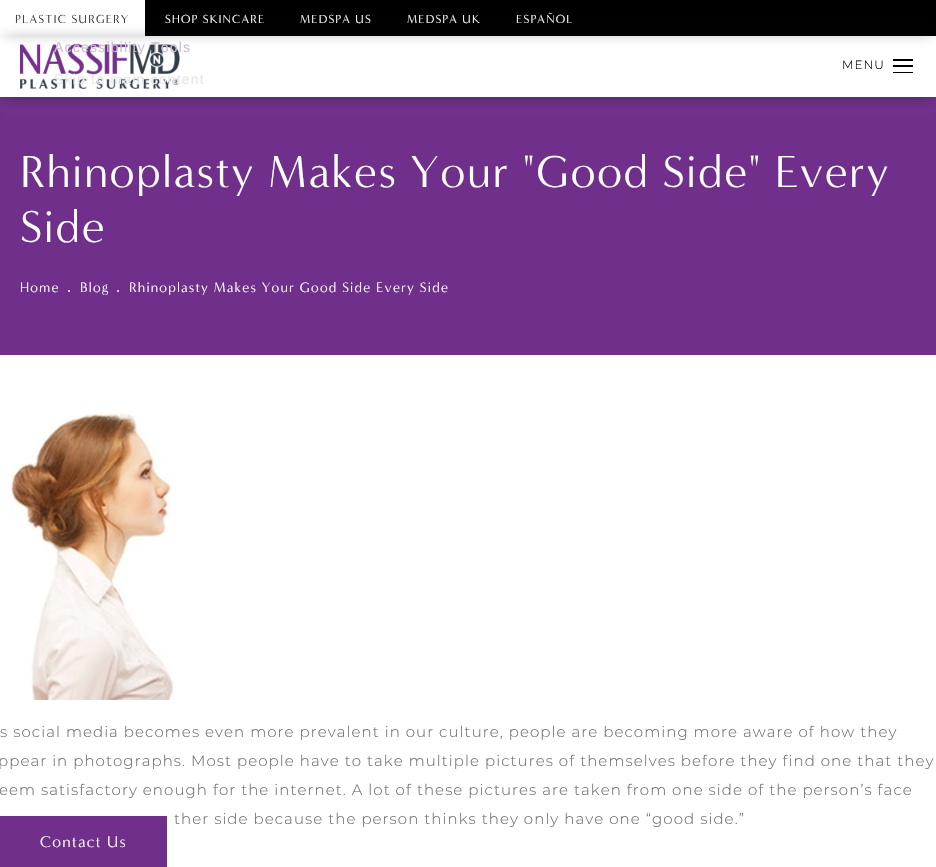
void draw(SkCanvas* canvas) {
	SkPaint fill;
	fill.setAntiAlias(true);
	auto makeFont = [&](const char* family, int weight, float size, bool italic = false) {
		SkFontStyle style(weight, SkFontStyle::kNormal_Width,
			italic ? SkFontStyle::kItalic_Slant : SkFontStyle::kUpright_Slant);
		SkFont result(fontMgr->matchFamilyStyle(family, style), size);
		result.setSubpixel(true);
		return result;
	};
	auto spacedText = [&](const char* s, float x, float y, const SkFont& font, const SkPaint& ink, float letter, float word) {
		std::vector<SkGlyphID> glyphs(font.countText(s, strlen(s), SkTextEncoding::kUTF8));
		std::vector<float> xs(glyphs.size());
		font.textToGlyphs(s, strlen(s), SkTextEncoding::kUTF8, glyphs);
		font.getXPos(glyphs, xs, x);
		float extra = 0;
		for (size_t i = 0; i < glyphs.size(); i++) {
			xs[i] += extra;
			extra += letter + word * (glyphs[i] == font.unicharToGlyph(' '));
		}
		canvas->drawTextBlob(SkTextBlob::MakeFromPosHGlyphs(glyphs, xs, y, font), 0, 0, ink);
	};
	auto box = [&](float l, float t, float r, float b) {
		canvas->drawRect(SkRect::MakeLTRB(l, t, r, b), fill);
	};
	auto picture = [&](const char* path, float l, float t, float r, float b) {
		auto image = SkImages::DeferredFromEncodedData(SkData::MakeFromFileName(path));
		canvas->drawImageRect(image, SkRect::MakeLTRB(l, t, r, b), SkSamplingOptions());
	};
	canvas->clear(0xFFFFFFFF);
	fill.setColor(0xFF702F8A);
	box(0, 97, 936, 355);
	fill.setColor(0x66141414);
	fill.setMaskFilter(SkMaskFilter::MakeBlur(kNormal_SkBlurStyle, 7.5f));
	canvas->drawRect(SkRect::MakeLTRB(4, 4, 932, 93), fill);
	fill.setMaskFilter(nullptr);
	fill.setColor(0xFFFFFFFF);
	box(0, 36, 936, 97);
	fill.setColor(0x66141414);
	fill.setMaskFilter(SkMaskFilter::MakeBlur(kNormal_SkBlurStyle, 7.5f));
	canvas->drawRect(SkRect::MakeLTRB(4, 4, 932, 32), fill);
	fill.setMaskFilter(nullptr);
	fill.setColor(0xFF000000);
	box(145, 0, 936, 36);
	fill.setColor(0xFFFFFFFF);
	box(0, 0, 145, 36);
	canvas->save();
	canvas->clipPath(SkPathBuilder(SkPathFillType::kEvenOdd).moveTo(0, 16).lineTo(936, 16).lineTo(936, 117).lineTo(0, 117).close().moveTo(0, 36).lineTo(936, 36).lineTo(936, 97).lineTo(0, 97).close().detach(), true);
	fill.setColor(0x66141414);
	fill.setMaskFilter(SkMaskFilter::MakeBlur(kNormal_SkBlurStyle, 7.5f));
	canvas->drawRect(SkRect::MakeLTRB(4, 40, 932, 93), fill);
	fill.setMaskFilter(nullptr);
	canvas->restore();
	picture("image0.png", 20, 44, 180, 89);
	fill.setColor(0xFF000000);
	box(893, 65, 913, 67);
	box(893, 59, 913, 61);
	box(893, 72, 913, 73);
	fill.setColor(0xFFFFFFFF);
	canvas->drawCircle(69, 291, 1, fill);
	canvas->drawCircle(118, 291, 1, fill);
	picture("image1.png", 10, 410, 183, 700);
	fill.setColor(0xFF702F8A);
	box(0, 816, 167, 867);
	auto font1 = makeFont("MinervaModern", 400, 12);
	fill.setColor(0xFF333333);
	spacedText("PLASTIC SURGERY", 15, 23, font1, fill, 1.2f, 0);
	fill.setColor(0xFFFFFFFF);
	spacedText("SHOP SKINCARE", 165, 23, font1, fill, 1.2f, 0);
	spacedText("MEDSPA US", 300, 23, font1, fill, 1.2f, 0);
	spacedText("MEDSPA UK", 407, 23, font1, fill, 1.2f, 0);
	spacedText("ESPAÑOL", 516, 23, font1, fill, 1.2f, 0);
	auto font2 = makeFont("Montserrat", 300, 12);
	fill.setColor(0xFF000000);
	spacedText("MENU", 842, 69, font2, fill, 1, 0);
	auto font3 = makeFont("Liberation Sans", 400, 14);
	fill.setColor(0xFFCCC0D3);
	spacedText("Accessibility Tools", 54, 52, font3, fill, 1.2f, 0);
	fill.setColor(0xFFE7E8E9);
	spacedText("Skip to main content", 54, 84, font3, fill, 1.2f, 0);
	auto font4 = makeFont("MinervaModern", 400, 46);
	fill.setColor(0xFFFFFFFF);
	spacedText("Rhinoplasty Makes Your \"Good Side\" Every", 20, 187, font4, fill, 1.4f, 0);
	spacedText("Side", 20, 242, font4, fill, 1.4f, 0);
	auto font5 = makeFont("MinervaModern", 400, 14);
	spacedText("Home", 20, 292, font5, fill, 1.2f, 0);
	spacedText("Blog", 80, 292, font5, fill, 1.2f, 0);
	spacedText("Rhinoplasty Makes Your Good Side Every Side", 129, 292, font5, fill, 1.2f, 0);
	auto font6 = makeFont("Montserrat", 300, 15);
	fill.setColor(0xFF6E6E6E);
	spacedText("s social media becomes even more prevalent in our culture, people are becoming more aware of how they", 0, 737, font6, fill, 1.07f, 0);
	spacedText("ppear in photographs. Most people have to take multiple pictures of themselves before they find one that they", -2, 766, font6, fill, 1.07f, 0);
	spacedText("eem satisfactory enough for the internet. A lot of these pictures are taken from one side of the person’s face", -1, 795, font6, fill, 1.07f, 0);
	spacedText("ther side because the person thinks they only have one “good side.”", 174, 824, font6, fill, 1.07f, 0);
	auto font7 = makeFont("MinervaModern", 400, 16);
	fill.setColor(0xFFFFFFFF);
	spacedText("Contact Us", 40, 847, font7, fill, 1.2f, 0);
}
